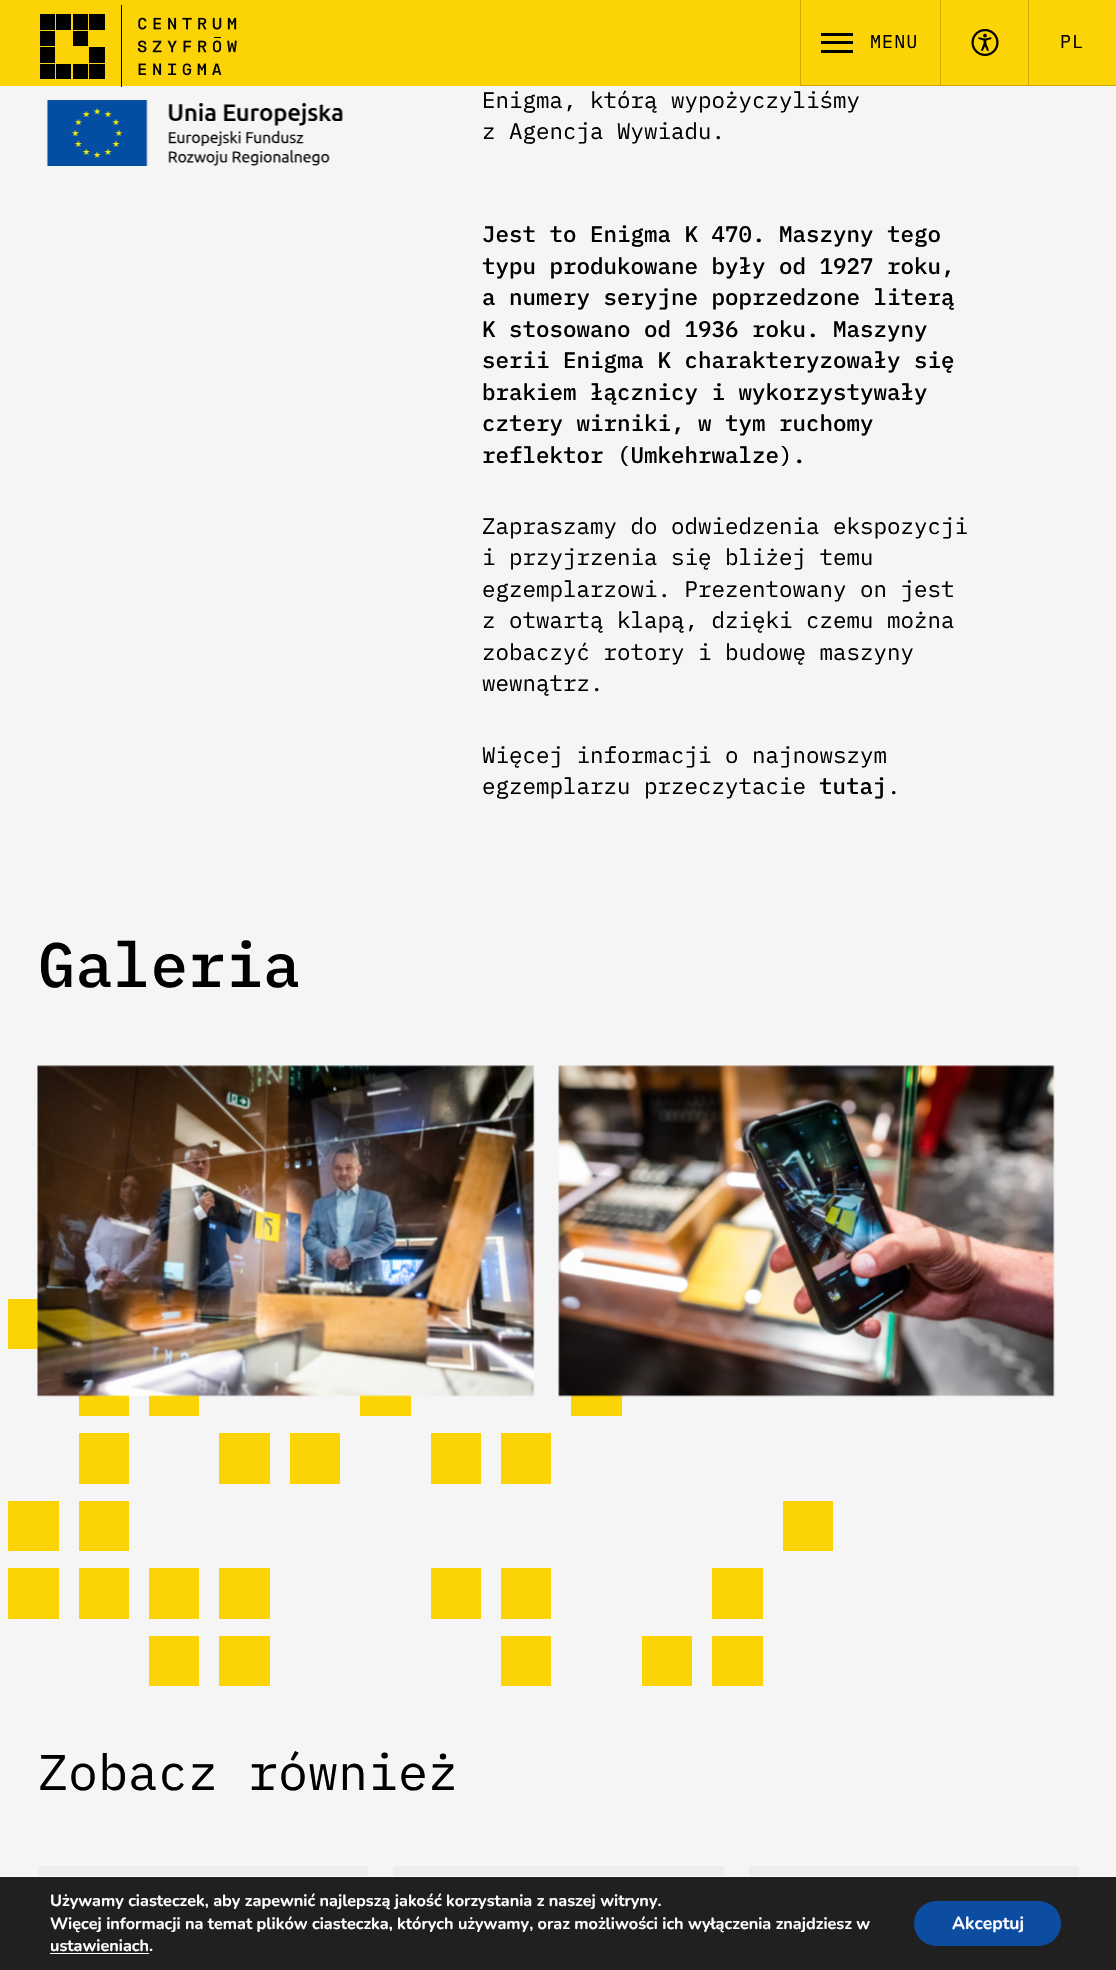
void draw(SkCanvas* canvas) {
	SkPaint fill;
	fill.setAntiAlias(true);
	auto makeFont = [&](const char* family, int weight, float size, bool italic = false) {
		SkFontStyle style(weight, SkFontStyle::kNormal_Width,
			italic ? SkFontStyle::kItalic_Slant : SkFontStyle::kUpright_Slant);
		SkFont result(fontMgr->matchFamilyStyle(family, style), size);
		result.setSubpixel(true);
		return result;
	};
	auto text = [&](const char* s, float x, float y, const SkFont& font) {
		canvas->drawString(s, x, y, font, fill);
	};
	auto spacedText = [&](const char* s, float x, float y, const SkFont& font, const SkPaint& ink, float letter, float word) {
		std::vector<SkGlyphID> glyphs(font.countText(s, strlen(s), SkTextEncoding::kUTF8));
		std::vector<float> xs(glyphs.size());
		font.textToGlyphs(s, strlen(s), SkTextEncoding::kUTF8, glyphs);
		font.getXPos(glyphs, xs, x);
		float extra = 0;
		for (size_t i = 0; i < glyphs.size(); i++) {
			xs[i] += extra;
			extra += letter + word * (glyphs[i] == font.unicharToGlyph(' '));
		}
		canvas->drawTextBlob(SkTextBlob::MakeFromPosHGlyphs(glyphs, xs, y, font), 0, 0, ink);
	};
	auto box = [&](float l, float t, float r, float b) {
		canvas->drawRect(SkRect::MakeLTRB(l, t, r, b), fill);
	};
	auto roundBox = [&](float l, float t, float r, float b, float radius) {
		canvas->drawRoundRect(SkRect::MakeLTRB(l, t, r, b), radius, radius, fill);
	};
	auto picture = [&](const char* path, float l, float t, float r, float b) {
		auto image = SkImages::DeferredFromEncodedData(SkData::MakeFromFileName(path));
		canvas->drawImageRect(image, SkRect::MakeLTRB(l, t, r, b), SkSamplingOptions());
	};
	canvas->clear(0xFFF5F5F5);
	fill.setColor(0xFFFCD405);
	box(0, 0, 1116, 86);
	picture("image0.png", 40, 5, 237, 87);
	picture("image1.png", 46, 100, 343, 166);
	fill.setColor(0xFFCEA900);
	box(800, 0, 801, 86);
	box(940, 0, 941, 86);
	box(801, 85, 941, 86);
	fill.setColor(0xFF000000);
	box(821, 33, 853, 36);
	box(821, 41, 853, 44);
	box(821, 50, 853, 53);
	fill.setColor(0xFFCEA900);
	box(1028, 0, 1029, 86);
	box(941, 85, 1116, 86);
	picture("image2.png", 971, 29, 999, 56);
	picture("image5.png", 8, 1299, 833, 1686);
	picture("image3.png", 37, 1065, 535, 1397);
	picture("image4.png", 558, 1065, 1055, 1397);
	fill.setColor(0xFFEDEDED);
	box(38, 1866, 368, 1876);
	box(393, 1866, 724, 1876);
	box(749, 1866, 1079, 1876);
	fill.setColor(0xFF202020);
	box(0, 1877, 1116, 1970);
	fill.setColor(0xFFFFFFFF);
	box(0, 1876, 1116, 1877);
	box(50, 1953, 149, 1954);
	fill.setColor(0xFF0C4DA2);
	roundBox(914, 1901, 1061, 1946, 22.5f);
	auto font1 = makeFont("IBM Plex Mono", 400, 18.5f);
	fill.setColor(0xFF000000);
	spacedText("MENU", 870, 48, font1, fill, 1, 0);
	spacedText("PL", 1060, 48, font1, fill, 1, 0);
	auto font2 = makeFont("IBM Plex Mono", 400, 22.5f);
	text("Enigma, którą wypożyczyliśmy", 482, 108, font2);
	text("z Agencja Wywiadu.", 482, 139, font2);
	auto font3 = makeFont("IBM Plex Mono", 500, 22.5f);
	text("Jest to Enigma K 470. Maszyny tego", 482, 242, font3);
	text("typu produkowane były od 1927 roku,", 482, 274, font3);
	text("a numery seryjne poprzedzone literą", 482, 305, font3);
	text("K stosowano od 1936 roku. Maszyny", 482, 337, font3);
	text("serii Enigma K charakteryzowały się", 482, 368, font3);
	text("brakiem łącznicy i wykorzystywały", 482, 400, font3);
	text("cztery wirniki, w tym ruchomy", 482, 431, font3);
	text("reflektor (Umkehrwalze).", 482, 463, font3);
	text("Zapraszamy do odwiedzenia ekspozycji", 482, 534, font2);
	text("i przyjrzenia się bliżej temu", 482, 565, font2);
	text("egzemplarzowi. Prezentowany on jest", 482, 597, font2);
	text("z otwartą klapą, dzięki czemu można", 482, 628, font2);
	text("zobaczyć rotory i budowę maszyny", 482, 660, font2);
	text("wewnątrz.", 482, 691, font2);
	text("Więcej informacji o najnowszym", 482, 763, font2);
	text("egzemplarzu przeczytacie", 482, 794, font2);
	text("tutaj", 819, 794, font3);
	text(".", 887, 794, font2);
	auto font4 = makeFont("IBM Plex Mono", 500, 62.5f);
	text("Galeria", 38, 987, font4);
	auto font5 = makeFont("IBM Plex Mono", 400, 50);
	text("Zobacz również", 38, 1790, font5);
	auto font6 = makeFont("Nunito", 700, 16.25f);
	fill.setColor(0xFFFFFFFF);
	text("Używamy ciasteczek, aby zapewnić najlepszą jakość korzystania z naszej witryny.", 50, 1906, font6);
	text("Więcej informacji na temat plików ciasteczka, których używamy, oraz możliwości ich wyłączenia znajdziesz w", 50, 1929, font6);
	text("ustawieniach.", 50, 1951, font6);
	auto font7 = makeFont("Nunito", 700, 17.5f);
	text("Akceptuj", 952, 1929, font7);
}
